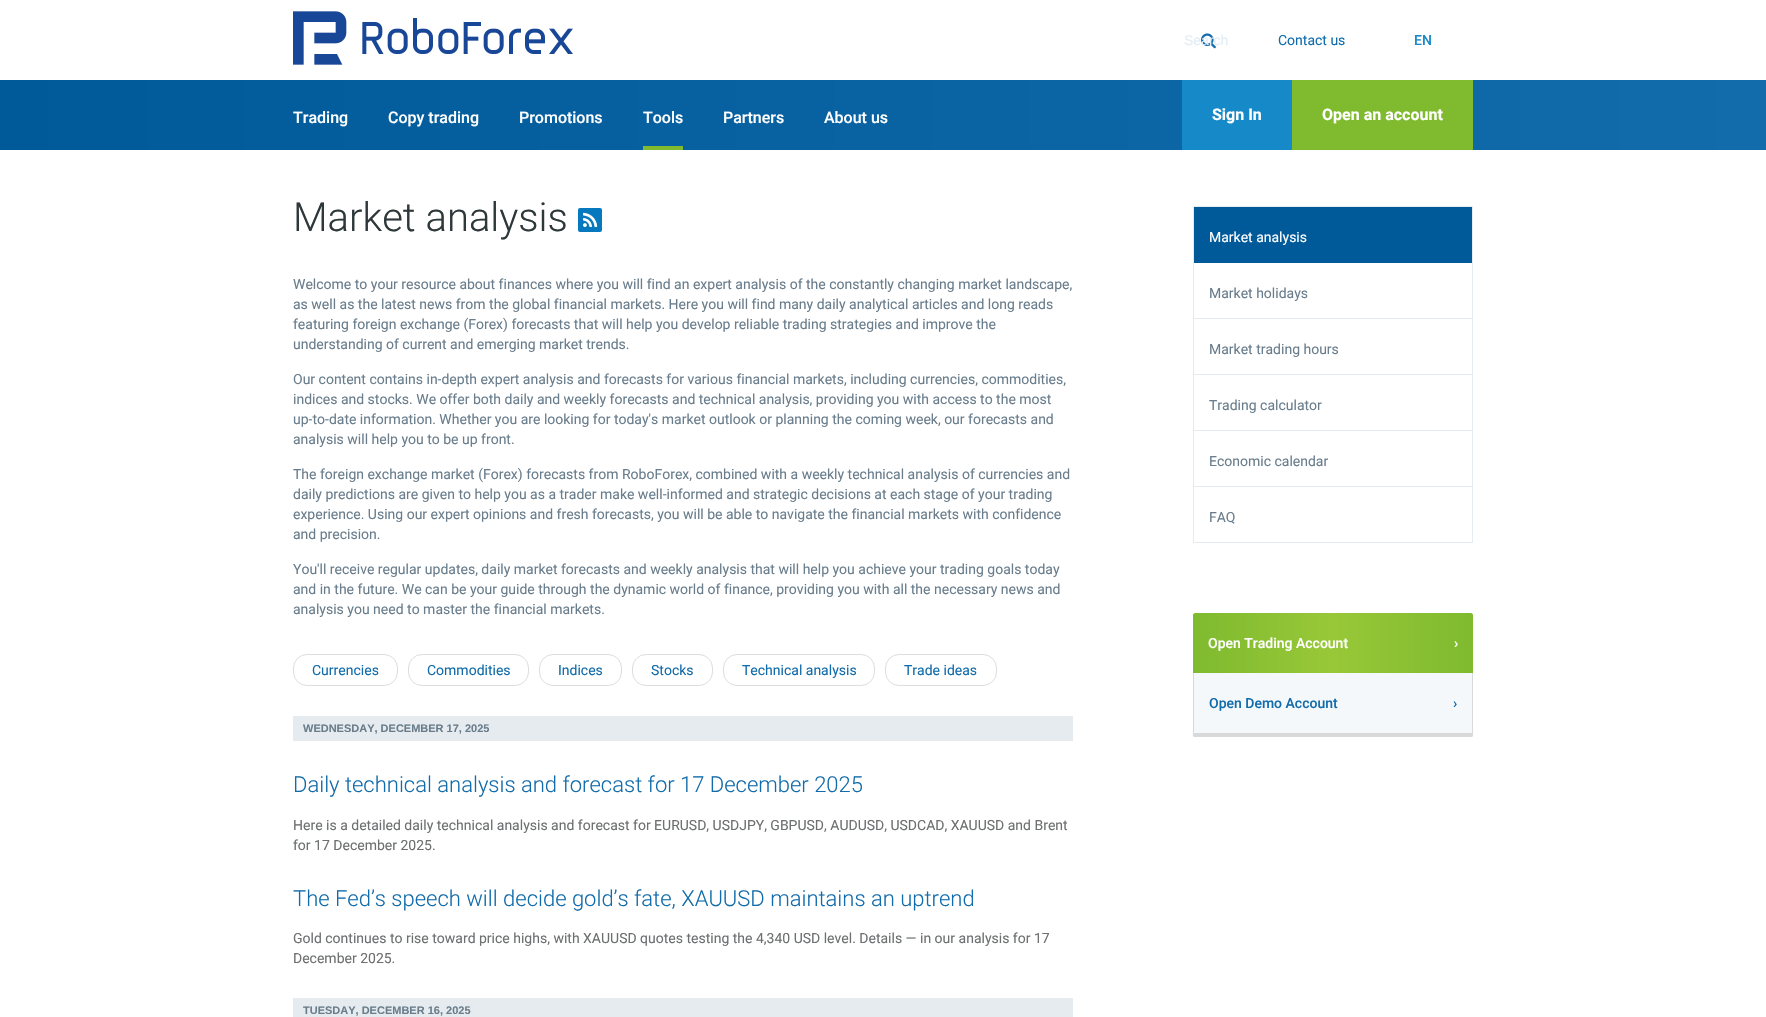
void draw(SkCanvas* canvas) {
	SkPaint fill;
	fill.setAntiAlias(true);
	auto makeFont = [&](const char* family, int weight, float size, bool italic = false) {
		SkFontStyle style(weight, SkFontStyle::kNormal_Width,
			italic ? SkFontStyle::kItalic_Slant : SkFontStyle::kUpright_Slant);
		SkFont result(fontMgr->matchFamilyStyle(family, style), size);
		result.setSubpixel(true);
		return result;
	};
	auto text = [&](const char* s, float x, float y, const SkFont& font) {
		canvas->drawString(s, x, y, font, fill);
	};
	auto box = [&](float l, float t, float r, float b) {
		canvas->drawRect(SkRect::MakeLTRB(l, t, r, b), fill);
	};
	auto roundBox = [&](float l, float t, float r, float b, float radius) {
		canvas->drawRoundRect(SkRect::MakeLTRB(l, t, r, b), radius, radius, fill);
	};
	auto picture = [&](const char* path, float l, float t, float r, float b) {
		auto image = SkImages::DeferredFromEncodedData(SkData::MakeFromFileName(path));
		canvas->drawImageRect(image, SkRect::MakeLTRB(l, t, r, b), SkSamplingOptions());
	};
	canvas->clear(0xFFFFFFFF);
	picture("image0.png", 293, 11, 573, 65);
	picture("image1.png", 1201, 33, 1216, 49);
	{
		const SkColor colors[] = {0xFF005999, 0xFF126CAB};
		const float stops[] = {0, 1};
		const SkPoint ends[] = {{0, 115}, {1766, 115}};
		fill.setShader(SkGradientShader::MakeLinear(ends, colors, stops, 2, SkTileMode::kClamp));
		fill.setAlpha(255);
	}
	box(0, 80, 1766, 150);
	fill.setShader(nullptr);
	fill.setColor(0xFF7FBA2F);
	box(643, 146, 683, 150);
	fill.setColor(0xFF168AC9);
	box(1182, 80, 1292, 150);
	fill.setColor(0xFF7FBA2F);
	box(1292, 80, 1473, 150);
	fill.setColor(0xFF0578BE);
	roundBox(578, 208, 602, 232, 2);
	picture("image2.png", 583, 212, 598, 227);
	fill.setStyle(SkPaint::kStroke_Style);
	fill.setStrokeWidth(1);
	fill.setColor(0xFFDDDDDD);
	canvas->drawRoundRect(SkRect::MakeLTRB(293.5f, 654.5f, 397.5f, 685.5f), 13.5f, 13.5f, fill);
	canvas->drawRoundRect(SkRect::MakeLTRB(408.5f, 654.5f, 528.5f, 685.5f), 13.5f, 13.5f, fill);
	canvas->drawRoundRect(SkRect::MakeLTRB(539.5f, 654.5f, 621.5f, 685.5f), 13.5f, 13.5f, fill);
	canvas->drawRoundRect(SkRect::MakeLTRB(632.5f, 654.5f, 712.5f, 685.5f), 13.5f, 13.5f, fill);
	canvas->drawRoundRect(SkRect::MakeLTRB(723.5f, 654.5f, 874.5f, 685.5f), 13.5f, 13.5f, fill);
	canvas->drawRoundRect(SkRect::MakeLTRB(885.5f, 654.5f, 996.5f, 685.5f), 13.5f, 13.5f, fill);
	fill.setStyle(SkPaint::kFill_Style);
	fill.setColor(0xFFE6EBEF);
	box(293, 716, 1073, 741);
	box(293, 998, 1073, 1017);
	box(1193, 206, 1473, 207);
	box(1472, 206, 1473, 543);
	box(1193, 206, 1194, 543);
	fill.setColor(0xFF005999);
	box(1194, 207, 1472, 263);
	fill.setColor(0xFFE6EBEF);
	box(1194, 318, 1472, 319);
	box(1194, 374, 1472, 375);
	box(1194, 430, 1472, 431);
	box(1194, 486, 1472, 487);
	box(1194, 542, 1472, 543);
	{
		const SkColor colors[] = {0xFF7FBA2F, 0xFF98C838, 0xFF7FBA2F};
		const float stops[] = {0, 0.5f, 1};
		const SkPoint ends[] = {{1193, 643}, {1473, 643}};
		fill.setShader(SkGradientShader::MakeLinear(ends, colors, stops, 3, SkTileMode::kClamp));
		fill.setAlpha(255);
	}
	canvas->drawPath(SkPathBuilder().moveTo(1195, 613).lineTo(1471, 613).cubicTo(1472, 613, 1473, 614, 1473, 615).lineTo(1473, 673).lineTo(1193, 673).lineTo(1193, 615).cubicTo(1193, 614, 1194, 613, 1195, 613).close().detach(), fill);
	fill.setShader(nullptr);
	fill.setColor(0xFFD9D9D9);
	canvas->drawPath(SkPathBuilder().moveTo(1193, 732).cubicTo(1193, 734, 1192, 737, 1195, 737).lineTo(1472, 737).cubicTo(1474, 736, 1473, 733, 1473, 732).cubicTo(1473, 733, 1472, 734, 1471, 734).lineTo(1195, 734).cubicTo(1194, 734, 1193, 733, 1193, 732).close().detach(), fill);
	fill.setColor(0xFFF5F8FA);
	canvas->drawPath(SkPathBuilder().moveTo(1194, 673).lineTo(1472, 673).lineTo(1472, 732).cubicTo(1472, 732.5f, 1471.5f, 733, 1471, 733).lineTo(1195, 733).cubicTo(1194.5f, 733, 1194, 732.5f, 1194, 732).close().detach(), fill);
	fill.setColor(0xFFD7DADB);
	box(1472, 673, 1473, 733);
	box(1194, 733, 1472, 734);
	box(1193, 673, 1194, 733);
	auto font1 = makeFont("Liberation Sans", 400, 14);
	fill.setColor(0xFFE2EDF5);
	text("Search", 1184, 45, font1);
	auto font2 = makeFont("Roboto", 400, 14);
	fill.setColor(0xFF126CAB);
	text("Contact us", 1278, 45, font2);
	auto font3 = makeFont("Roboto", 500, 14);
	fill.setColor(0xFF168AC9);
	text("EN", 1414, 45, font3);
	auto font4 = makeFont("Roboto", 500, 16);
	fill.setColor(0xFFFFFFFF);
	text("Trading", 293, 123, font4);
	text("Copy trading", 388, 123, font4);
	text("Promotions", 519, 123, font4);
	text("Tools", 643, 123, font4);
	text("Partners", 723, 123, font4);
	text("About us", 824, 123, font4);
	auto font5 = makeFont("Roboto", 700, 16);
	text("Sign In", 1212, 120, font5);
	text("Open an account", 1322, 120, font5);
	auto font6 = makeFont("Roboto", 300, 40);
	fill.setColor(0xFF2E373A);
	text("Market analysis", 293, 231, font6);
	fill.setColor(0xFF697D8C);
	text("Welcome to your resource about finances where you will find an expert analysis of the constantly changing market landscape,", 293, 289, font2);
	text("as well as the latest news from the global financial markets. Here you will find many daily analytical articles and long reads", 293, 309, font2);
	text("featuring foreign exchange (Forex) forecasts that will help you develop reliable trading strategies and improve the", 293, 329, font2);
	text("understanding of current and emerging market trends.", 293, 349, font2);
	text("Our content contains in-depth expert analysis and forecasts for various financial markets, including currencies, commodities,", 293, 384, font2);
	text("indices and stocks. We offer both daily and weekly forecasts and technical analysis, providing you with access to the most", 293, 404, font2);
	text("up-to-date information. Whether you are looking for today's market outlook or planning the coming week, our forecasts and", 293, 424, font2);
	text("analysis will help you to be up front.", 293, 444, font2);
	text("The foreign exchange market (Forex) forecasts from RoboForex, combined with a weekly technical analysis of currencies and", 293, 479, font2);
	text("daily predictions are given to help you as a trader make well-informed and strategic decisions at each stage of your trading", 293, 499, font2);
	text("experience. Using our expert opinions and fresh forecasts, you will be able to navigate the financial markets with confidence", 293, 519, font2);
	text("and precision.", 293, 539, font2);
	text("You'll receive regular updates, daily market forecasts and weekly analysis that will help you achieve your trading goals today", 293, 574, font2);
	text("and in the future. We can be your guide through the dynamic world of finance, providing you with all the necessary news and", 293, 594, font2);
	text("analysis you need to master the financial markets.", 293, 614, font2);
	fill.setColor(0xFF126CAB);
	text("Currencies", 312, 675, font2);
	text("Commodities", 427, 675, font2);
	text("Indices", 558, 675, font2);
	text("Stocks", 651, 675, font2);
	text("Technical analysis", 742, 675, font2);
	text("Trade ideas", 904, 675, font2);
	auto font7 = makeFont("Liberation Sans", 700, 11);
	fill.setColor(0xFF697D8C);
	text("WEDNESDAY, DECEMBER 17, 2025", 303, 732, font7);
	auto font8 = makeFont("Roboto", 300, 22);
	fill.setColor(0xFF126CAB);
	text("Daily technical analysis and forecast for 17 December 2025", 293, 792, font8);
	fill.setColor(0xFF6D6F70);
	text("Here is a detailed daily technical analysis and forecast for EURUSD, USDJPY, GBPUSD, AUDUSD, USDCAD, XAUUSD and Brent", 293, 830, font2);
	text("for 17 December 2025.", 293, 850, font2);
	fill.setColor(0xFF126CAB);
	text("The Fed’s speech will decide gold’s fate, XAUUSD maintains an uptrend", 293, 906, font8);
	fill.setColor(0xFF6D6F70);
	text("Gold continues to rise toward price highs, with XAUUSD quotes testing the 4,340 USD level. Details — in our analysis for 17", 293, 943, font2);
	text("December 2025.", 293, 963, font2);
	fill.setColor(0xFF697D8C);
	text("TUESDAY, DECEMBER 16, 2025", 303, 1014, font7);
	fill.setColor(0xFFFFFFFF);
	text("Market analysis", 1209, 242, font2);
	fill.setColor(0xFF697D8C);
	text("Market holidays", 1209, 298, font2);
	text("Market trading hours", 1209, 354, font2);
	text("Trading calculator", 1209, 410, font2);
	text("Economic calendar", 1209, 466, font2);
	text("FAQ", 1209, 522, font2);
	fill.setColor(0xFFFFFFFF);
	text("Open Trading Account", 1208, 648, font3);
	text("›", 1454, 648, font3);
	fill.setColor(0xFF126CAB);
	text("Open Demo Account", 1209, 708, font3);
	text("›", 1453, 708, font3);
}
